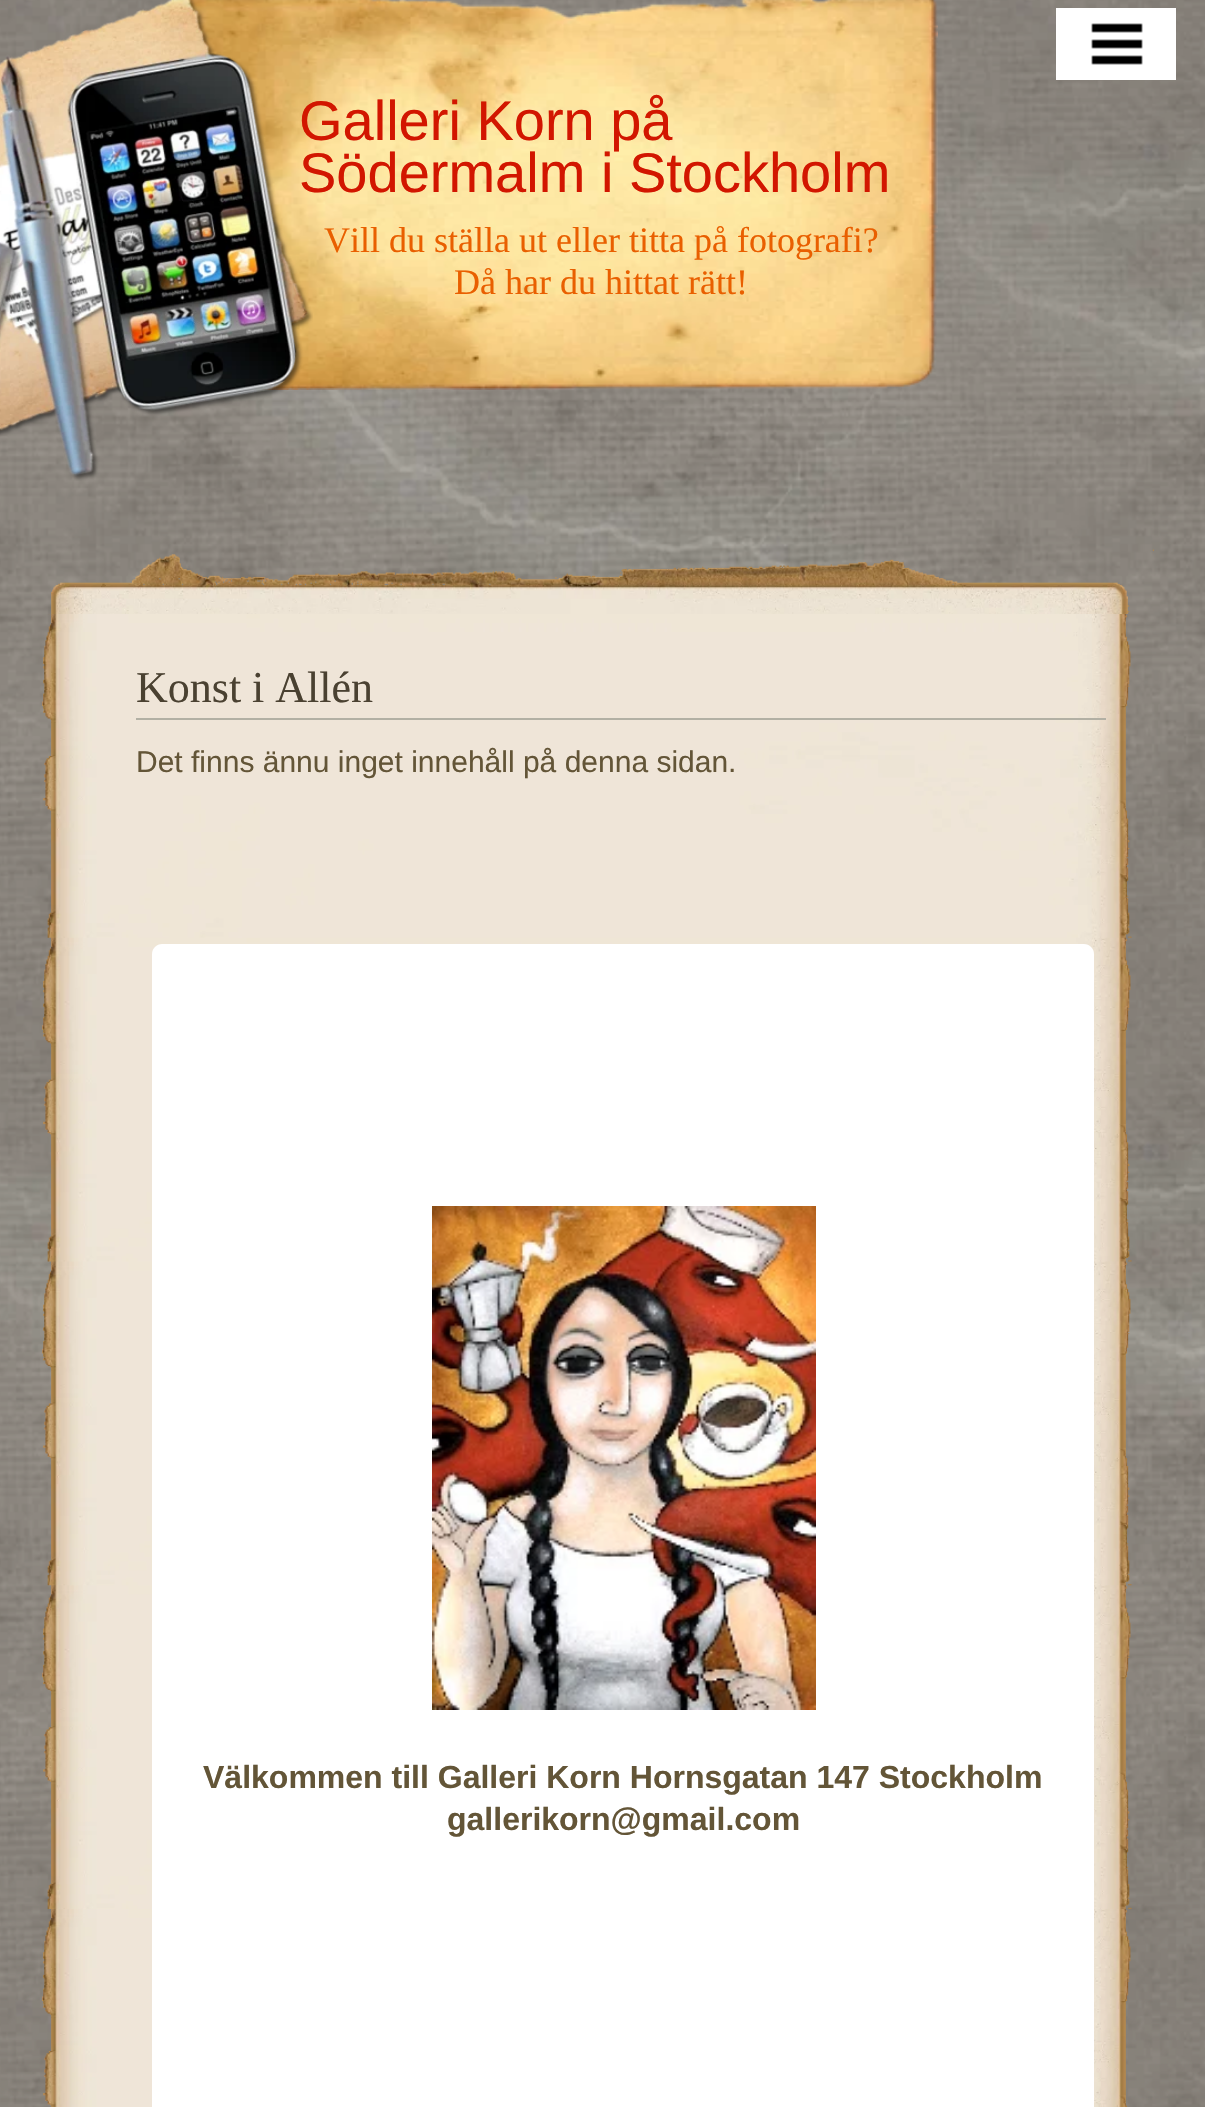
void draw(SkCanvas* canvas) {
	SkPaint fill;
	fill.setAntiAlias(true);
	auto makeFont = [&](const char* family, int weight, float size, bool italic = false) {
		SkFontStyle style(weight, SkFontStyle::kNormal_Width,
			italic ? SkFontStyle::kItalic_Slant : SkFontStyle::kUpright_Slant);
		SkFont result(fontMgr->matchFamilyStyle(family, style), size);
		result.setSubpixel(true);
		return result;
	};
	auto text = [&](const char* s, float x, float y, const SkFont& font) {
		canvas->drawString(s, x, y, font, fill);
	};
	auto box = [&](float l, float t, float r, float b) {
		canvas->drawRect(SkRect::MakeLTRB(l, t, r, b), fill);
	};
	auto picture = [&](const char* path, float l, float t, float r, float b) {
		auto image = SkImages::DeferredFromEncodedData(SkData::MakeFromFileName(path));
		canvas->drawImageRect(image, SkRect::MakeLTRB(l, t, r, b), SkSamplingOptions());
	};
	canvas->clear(0xFFFFFFFF);
	picture("image0.png", 0, 0, 1205, 2107);
	fill.setColor(0xFF000000);
	box(1091, 23, 1143, 65);
	picture("image1.png", 1056, 8, 1176, 80);
	picture("image3.png", 173, 0, 938, 390);
	picture("image4.png", 51, 549, 1154, 614);
	picture("image5.png", 42, 614, 1132, 2107);
	fill.setColor(0xFFB2B0A4);
	box(136, 718, 1106, 720);
	fill.setColor(0xFFFFFFFF);
	canvas->drawPath(SkPathBuilder().moveTo(162, 944).lineTo(1084, 944).cubicTo(1089.5f, 944, 1094, 948.5f, 1094, 954).lineTo(1094, 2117).lineTo(152, 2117).lineTo(152, 954).cubicTo(152, 948.5f, 156.5f, 944, 162, 944).close().detach(), fill);
	picture("image6.png", 432, 1206, 816, 1710);
	auto font1 = makeFont("Liberation Sans", 400, 56);
	fill.setColor(0xFFD21600);
	text("Galleri Korn på", 299, 140, font1);
	text("Södermalm i Stockholm", 299, 192, font1);
	picture("image2.png", 0, 0, 313, 481);
	auto font2 = makeFont("Liberation Serif", 400, 36);
	fill.setColor(0xFFE95F00);
	text("Vill du ställa ut eller titta på fotografi?", 324, 252, font2);
	text("Då har du hittat rätt!", 454, 294, font2);
	auto font3 = makeFont("Liberation Serif", 400, 44);
	fill.setColor(0xFF4A4131);
	text("Konst i Allén", 136, 702, font3);
	auto font4 = makeFont("Liberation Sans", 400, 30);
	fill.setColor(0xFF635537);
	text("Det finns ännu inget innehåll på denna sidan.", 136, 772, font4);
	auto font5 = makeFont("Liberation Sans", 700, 32);
	text("Välkommen till Galleri Korn Hornsgatan 147 Stockholm", 203, 1788, font5);
	text("gallerikorn@gmail.com", 447, 1830, font5);
}
